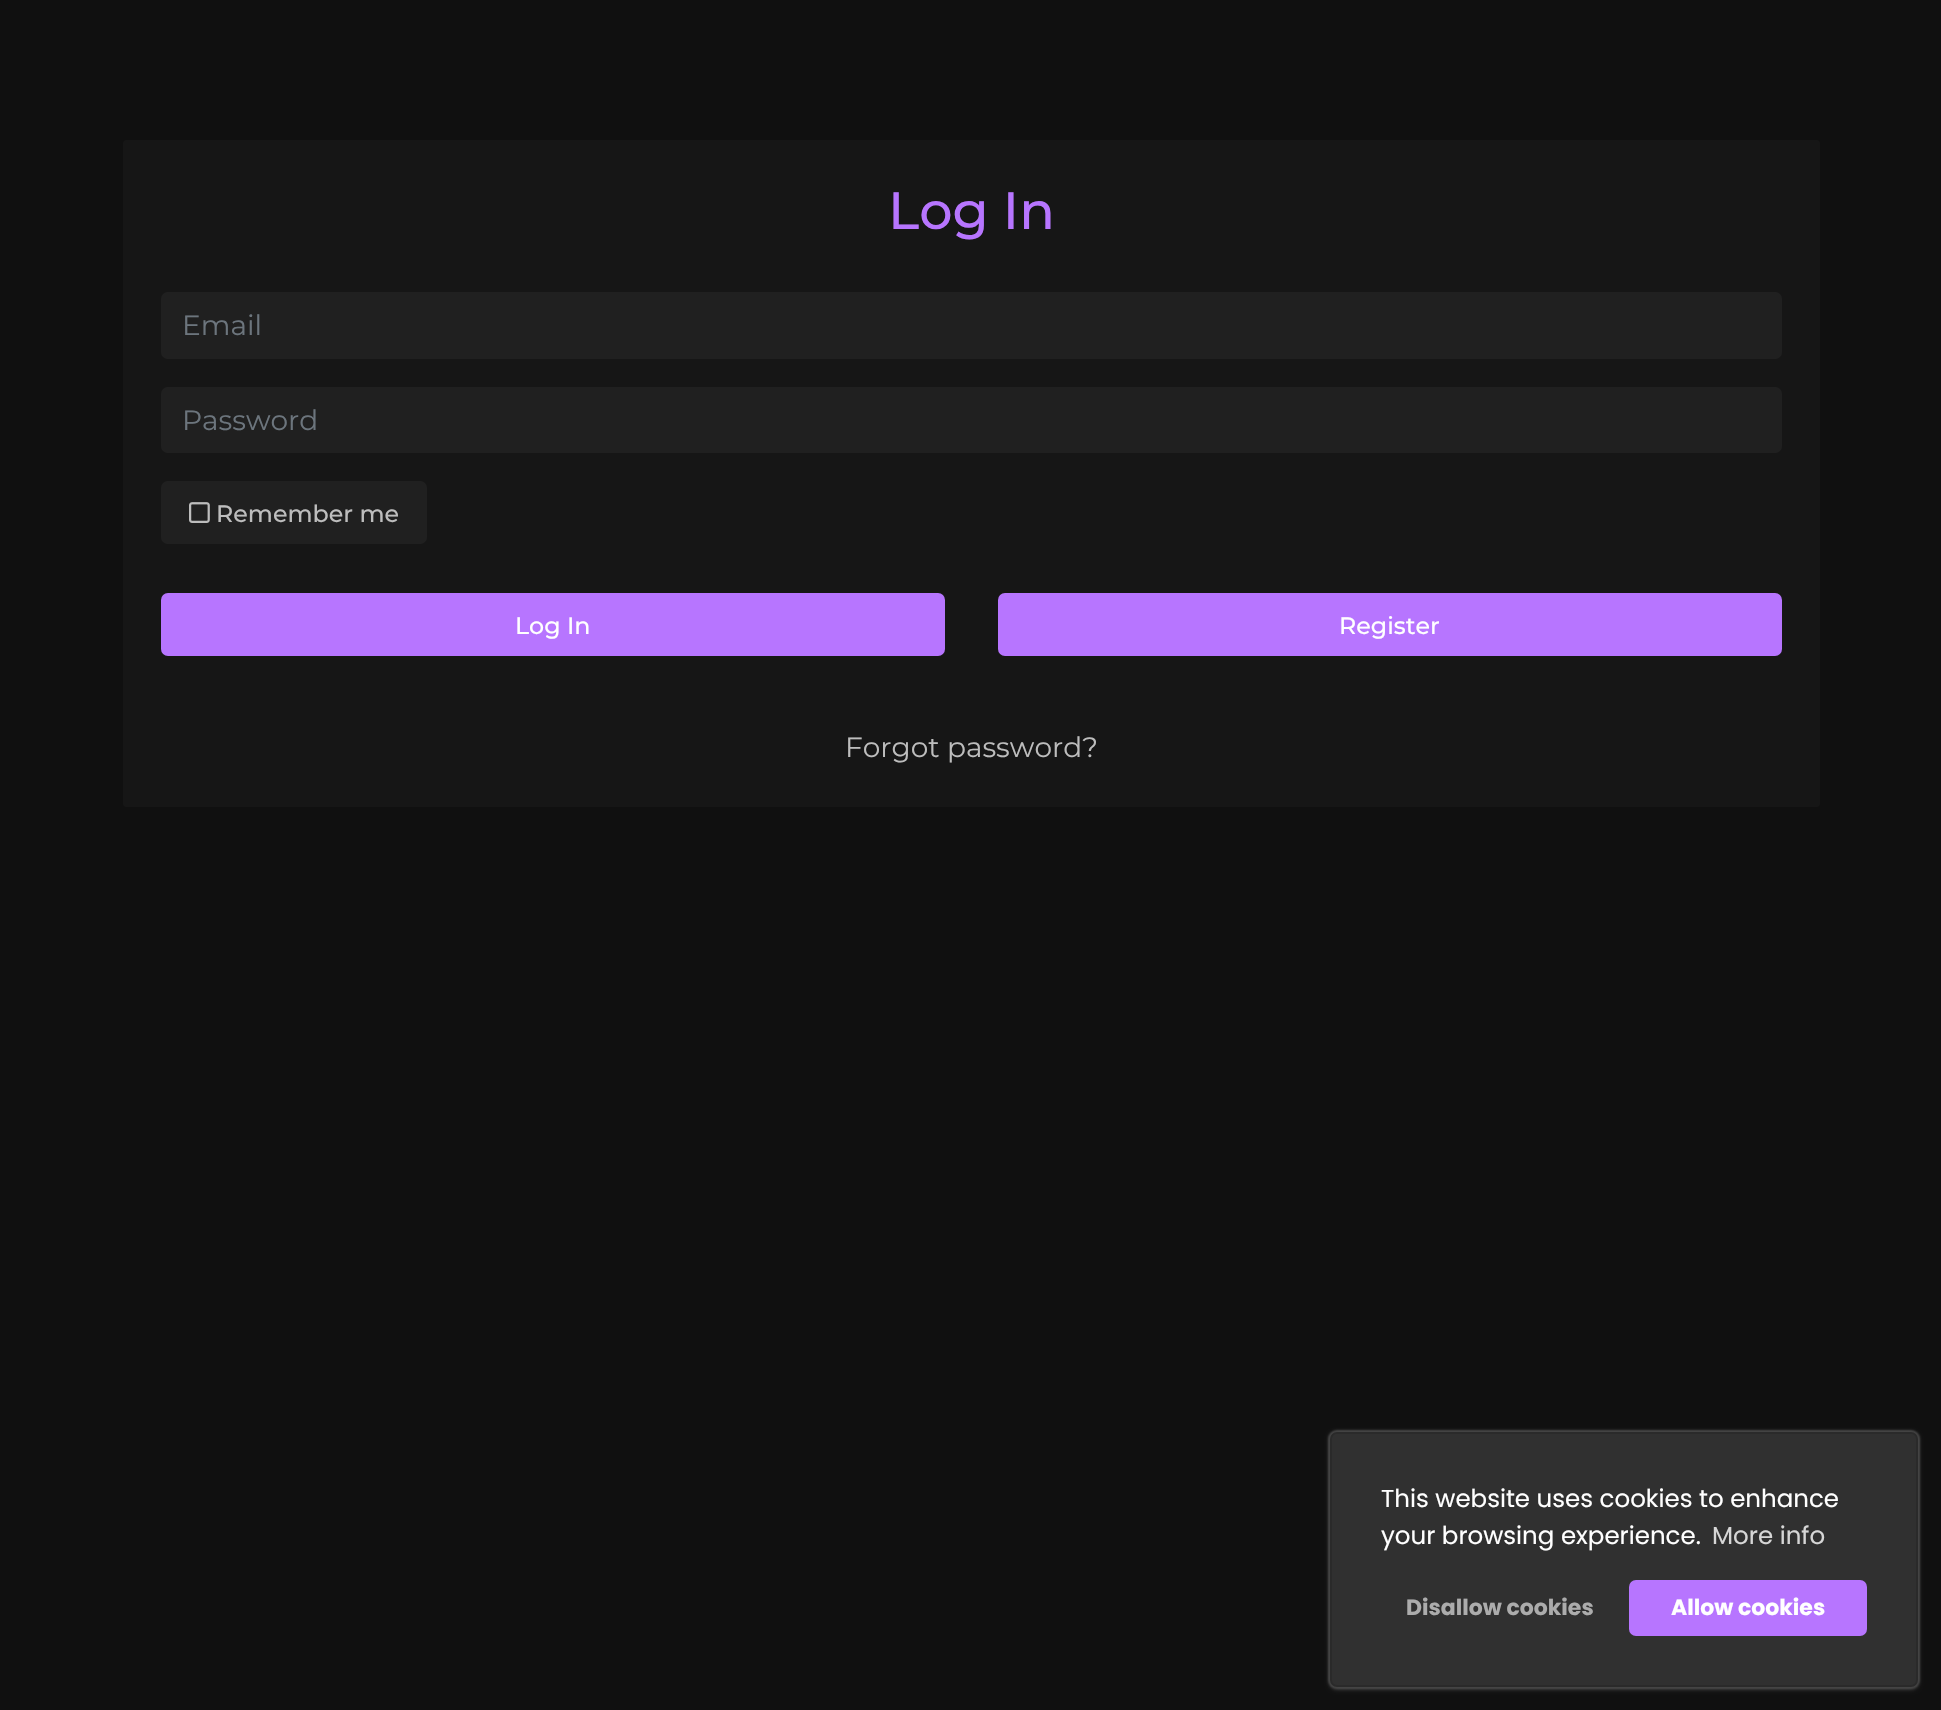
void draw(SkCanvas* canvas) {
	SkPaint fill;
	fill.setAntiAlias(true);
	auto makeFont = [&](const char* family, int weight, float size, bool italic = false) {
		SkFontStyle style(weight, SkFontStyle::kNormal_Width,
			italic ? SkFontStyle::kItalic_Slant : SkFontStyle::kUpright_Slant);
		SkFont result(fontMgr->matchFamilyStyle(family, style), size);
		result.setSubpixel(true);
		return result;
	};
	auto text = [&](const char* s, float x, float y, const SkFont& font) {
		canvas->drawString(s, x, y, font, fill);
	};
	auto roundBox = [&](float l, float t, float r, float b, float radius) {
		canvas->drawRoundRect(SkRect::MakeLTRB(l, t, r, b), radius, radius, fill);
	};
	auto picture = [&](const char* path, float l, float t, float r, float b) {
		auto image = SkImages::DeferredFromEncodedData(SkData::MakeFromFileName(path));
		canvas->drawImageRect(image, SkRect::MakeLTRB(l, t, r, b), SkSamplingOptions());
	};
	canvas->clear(0xFF101010);
	fill.setColor(0xFF161616);
	roundBox(123, 140, 1820, 807, 4);
	fill.setColor(0xFF202020);
	roundBox(161, 292, 1782, 359, 7);
	roundBox(161, 387, 1782, 453, 7);
	roundBox(161, 481, 427, 544, 7);
	picture("image0.png", 189, 502, 210, 523);
	fill.setColor(0xFFB775FF);
	roundBox(161, 593, 945, 656, 7);
	roundBox(998, 593, 1782, 656, 7);
	fill.setColor(0xFF444444);
	fill.setMaskFilter(SkMaskFilter::MakeBlur(kNormal_SkBlurStyle, 1));
	canvas->drawRoundRect(SkRect::MakeLTRB(1328, 1430, 1920, 1689), 9, 9, fill);
	fill.setMaskFilter(nullptr);
	fill.setMaskFilter(SkMaskFilter::MakeBlur(kNormal_SkBlurStyle, 2.5f));
	canvas->drawRoundRect(SkRect::MakeLTRB(1330, 1433, 1918, 1689), 7, 7, fill);
	fill.setMaskFilter(nullptr);
	fill.setColor(0xFF303030);
	roundBox(1330, 1432, 1918, 1687, 7);
	fill.setStyle(SkPaint::kStroke_Style);
	fill.setStrokeWidth(2);
	fill.setColor(0x1F000000);
	canvas->drawRoundRect(SkRect::MakeLTRB(1331, 1433, 1917, 1686), 6, 6, fill);
	fill.setStyle(SkPaint::kFill_Style);
	fill.setColor(0xFFB775FF);
	roundBox(1629, 1580, 1867, 1636, 7);
	auto font1 = makeFont("Montserrat", 500, 52.5f);
	text("Log In", 888, 229, font1);
	auto font2 = makeFont("Montserrat", 400, 28);
	fill.setColor(0xFF6C757D);
	text("Email", 182, 335, font2);
	text("Password", 182, 430, font2);
	auto font3 = makeFont("Montserrat", 500, 23.75f);
	fill.setColor(0xFFBDBDBD);
	text("Remember me", 216, 522, font3);
	fill.setColor(0xFFFFFFFF);
	text("Log In", 515, 634, font3);
	text("Register", 1339, 634, font3);
	fill.setColor(0xFFBDBDBD);
	text("Forgot password?", 845, 757, font2);
	auto font4 = makeFont("Poppins", 400, 24.5f);
	fill.setColor(0xFFFFFFFF);
	text("This website uses cookies to enhance", 1381, 1507, font4);
	text("your browsing experience.", 1381, 1544, font4);
	fill.setColor(0xFFD6D6D6);
	text("More info", 1712, 1544, font4);
	auto font5 = makeFont("Poppins", 700, 22);
	fill.setColor(0xFFACACAC);
	text("Disallow cookies", 1406, 1615, font5);
	fill.setColor(0xFFFFFFFF);
	text("Allow cookies", 1671, 1615, font5);
}
